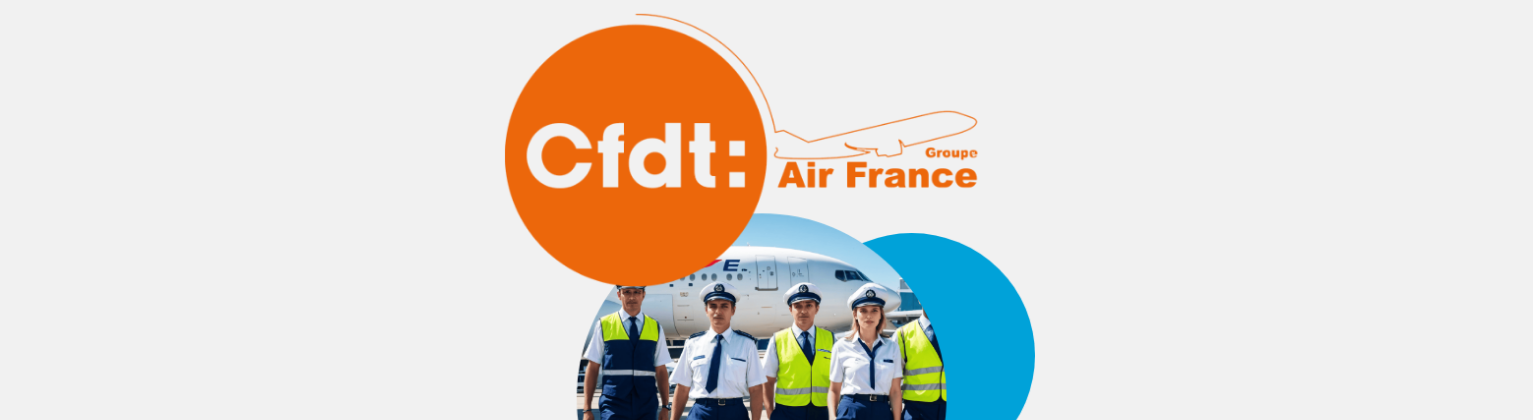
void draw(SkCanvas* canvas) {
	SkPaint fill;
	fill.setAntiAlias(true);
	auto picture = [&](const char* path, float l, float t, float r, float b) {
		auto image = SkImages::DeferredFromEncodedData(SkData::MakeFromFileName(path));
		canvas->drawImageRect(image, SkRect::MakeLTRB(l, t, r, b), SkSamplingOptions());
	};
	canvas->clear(0xFFF1F1F1);
	picture("image0.png", 504, 13, 1035, 420);
}
